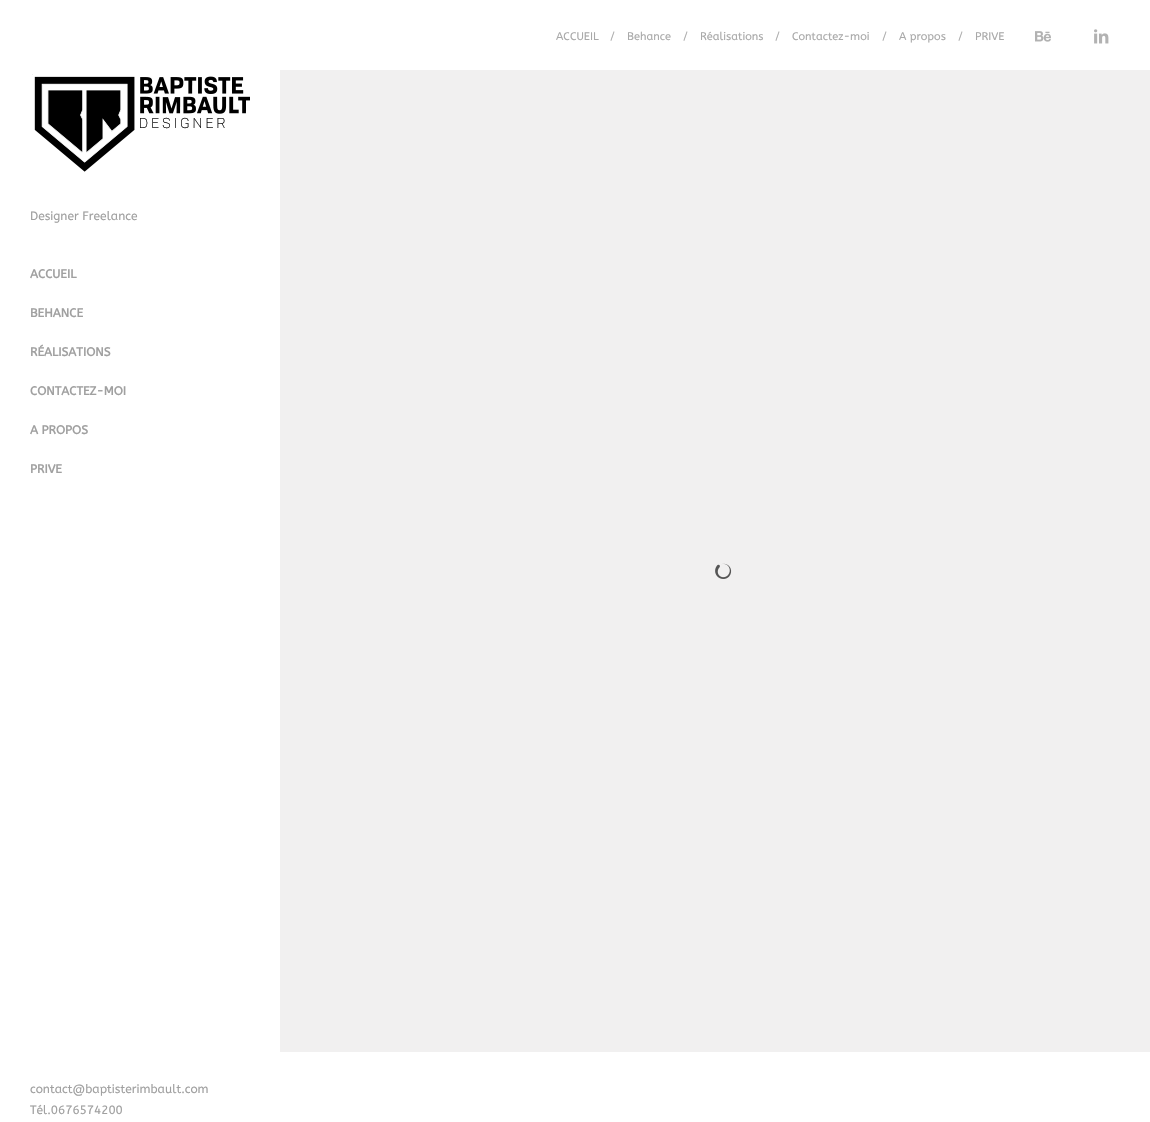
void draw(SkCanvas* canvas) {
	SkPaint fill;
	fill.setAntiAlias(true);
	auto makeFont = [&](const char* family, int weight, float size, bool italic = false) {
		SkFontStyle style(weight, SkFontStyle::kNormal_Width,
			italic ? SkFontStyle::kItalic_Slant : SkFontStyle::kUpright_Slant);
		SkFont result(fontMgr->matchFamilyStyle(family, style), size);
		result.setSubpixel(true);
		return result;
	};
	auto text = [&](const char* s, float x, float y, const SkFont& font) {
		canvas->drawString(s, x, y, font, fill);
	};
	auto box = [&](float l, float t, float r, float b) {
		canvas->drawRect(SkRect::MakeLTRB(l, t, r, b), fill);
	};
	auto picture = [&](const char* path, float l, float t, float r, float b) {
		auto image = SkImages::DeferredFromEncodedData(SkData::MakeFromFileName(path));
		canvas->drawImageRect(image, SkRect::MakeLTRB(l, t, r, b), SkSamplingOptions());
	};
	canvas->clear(0xFFF1F0F0);
	fill.setColor(0xFFFFFFFF);
	box(280, 0, 1150, 70);
	picture("image0.png", 1035, 31, 1051, 42);
	picture("image1.png", 1094, 29, 1109, 44);
	box(280, 1052, 1150, 1122);
	box(0, 0, 280, 1122);
	picture("image2.png", 32, 74, 250, 172);
	picture("image3.png", 715, 563, 732, 579);
	auto font1 = makeFont("ABeeZee", 400, 11);
	fill.setColor(0xFFA9A9A9);
	text("ACCUEIL", 556, 40, font1);
	text("/", 610, 40, font1);
	text("Behance", 627, 40, font1);
	text("/", 683, 40, font1);
	text("Réalisations", 700, 40, font1);
	text("/", 775, 40, font1);
	text("Contactez-moi", 792, 40, font1);
	text("/", 882, 40, font1);
	text("A propos", 899, 40, font1);
	text("/", 958, 40, font1);
	text("PRIVE", 975, 40, font1);
	auto font2 = makeFont("ABeeZee", 400, 12);
	fill.setColor(0xFFA0A0A0);
	text("Designer Freelance", 30, 220, font2);
	auto font3 = makeFont("ABeeZee", 700, 12);
	text("ACCUEIL", 30, 278, font3);
	text("BEHANCE", 30, 317, font3);
	text("RÉALISATIONS", 30, 356, font3);
	text("CONTACTEZ-MOI", 30, 395, font3);
	text("A PROPOS", 30, 434, font3);
	text("PRIVE", 30, 473, font3);
	text("contact@baptisterimbault.com", 30, 1093, font2);
	text("Tél.0676574200", 30, 1114, font2);
}
